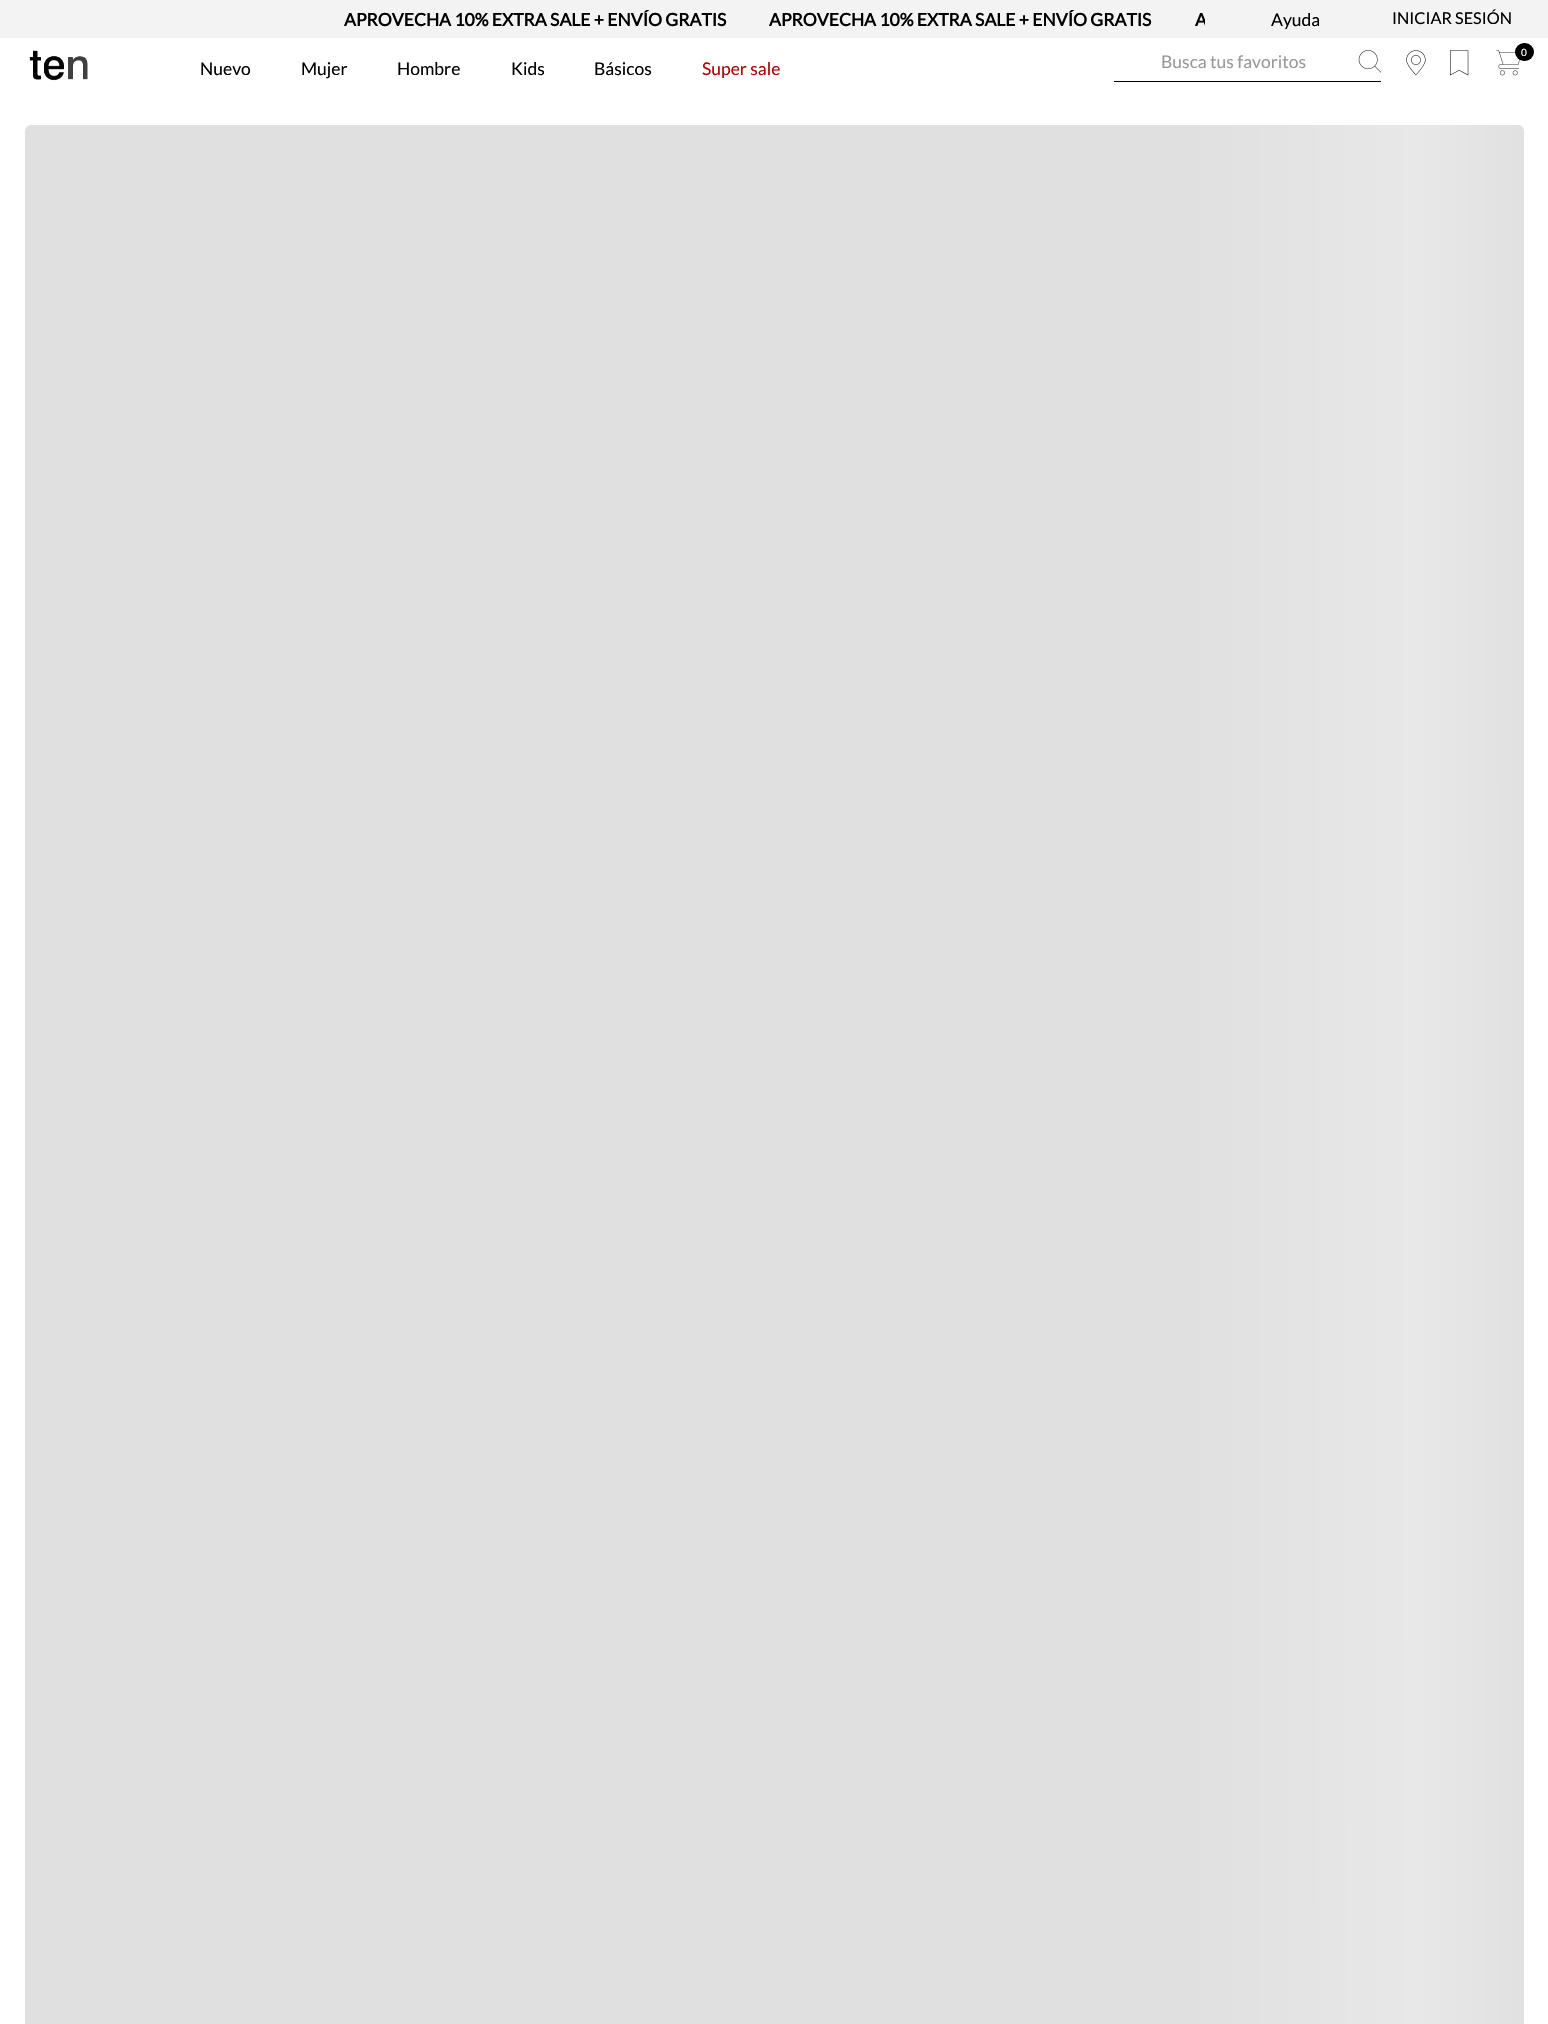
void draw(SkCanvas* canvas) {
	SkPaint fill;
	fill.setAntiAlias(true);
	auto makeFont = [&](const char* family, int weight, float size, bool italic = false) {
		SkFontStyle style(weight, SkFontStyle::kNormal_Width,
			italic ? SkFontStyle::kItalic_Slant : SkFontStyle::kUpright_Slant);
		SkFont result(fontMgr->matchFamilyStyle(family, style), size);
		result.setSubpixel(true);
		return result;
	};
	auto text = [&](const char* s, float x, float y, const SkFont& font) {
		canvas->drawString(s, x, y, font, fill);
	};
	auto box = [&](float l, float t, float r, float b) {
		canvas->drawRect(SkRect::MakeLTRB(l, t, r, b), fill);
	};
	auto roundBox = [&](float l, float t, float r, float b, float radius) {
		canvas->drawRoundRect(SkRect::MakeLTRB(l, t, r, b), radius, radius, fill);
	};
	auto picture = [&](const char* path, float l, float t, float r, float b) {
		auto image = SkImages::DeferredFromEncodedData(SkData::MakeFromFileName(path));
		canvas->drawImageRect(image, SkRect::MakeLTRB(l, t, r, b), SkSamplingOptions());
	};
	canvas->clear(0xFFFFFFFF);
	fill.setColor(0xFFF3F3F3);
	box(0, 0, 1548, 38);
	picture("image0.png", 29, 50, 88, 81);
	fill.setColor(0xFF000000);
	box(1114, 81, 1381, 82);
	picture("image1.png", 1358, 50, 1381, 73);
	picture("image2.png", 1406, 50, 1426, 76);
	picture("image3.png", 1450, 50, 1469, 76);
	picture("image4.png", 1496, 50, 1520, 76);
	roundBox(1515, 43, 1534, 61, 9);
	{
		const SkColor colors[] = {0xFFE0E0E0, 0xFFE0E0E0, 0xFFE8E8E8, 0xFFE0E0E0, 0xFFE0E0E0};
		const float stops[] = {0, 0.5f, 0.6f, 0.65f, 1};
		const SkPoint ends[] = {{25, 1138}, {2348, 1137}};
		fill.setShader(SkGradientShader::MakeLinear(ends, colors, stops, 5, SkTileMode::kClamp));
		fill.setAlpha(255);
	}
	roundBox(25, 125, 1524, 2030, 6);
	auto font1 = makeFont("Lato", 700, 17.5f);
	fill.setShader(nullptr);
	fill.setColor(0xFF000000);
	text("APROVECHA 10% EXTRA SALE + ENVÍO GRATIS", 344, 26, font1);
	text("APROVECHA 10% EXTRA SALE + ENVÍO GRATIS", 769, 26, font1);
	canvas->save();
	canvas->clipRect(SkRect::MakeLTRB(25, 0, 1205, 38));
	text("A", 1195, 26, font1);
	canvas->restore();
	auto font2 = makeFont("Lato", 400, 17.5f);
	text("Ayuda", 1271, 26, font2);
	auto font3 = makeFont("Lato", 400, 16.25f);
	text("INICIAR SESIÓN", 1392, 24, font3);
	text("Nuevo", 200, 75, font2);
	text("Mujer", 301, 75, font2);
	text("Hombre", 397, 75, font2);
	text("Kids", 511, 75, font2);
	text("Básicos", 594, 75, font2);
	fill.setColor(0xFFAB0404);
	text("Super sale", 702, 75, font2);
	fill.setColor(0xFF979899);
	text("Busca tus favoritos", 1161, 68, font2);
	auto font4 = makeFont("Lato", 400, 10);
	fill.setColor(0xFFFFFFFF);
	text("0", 1521, 56, font4);
}
